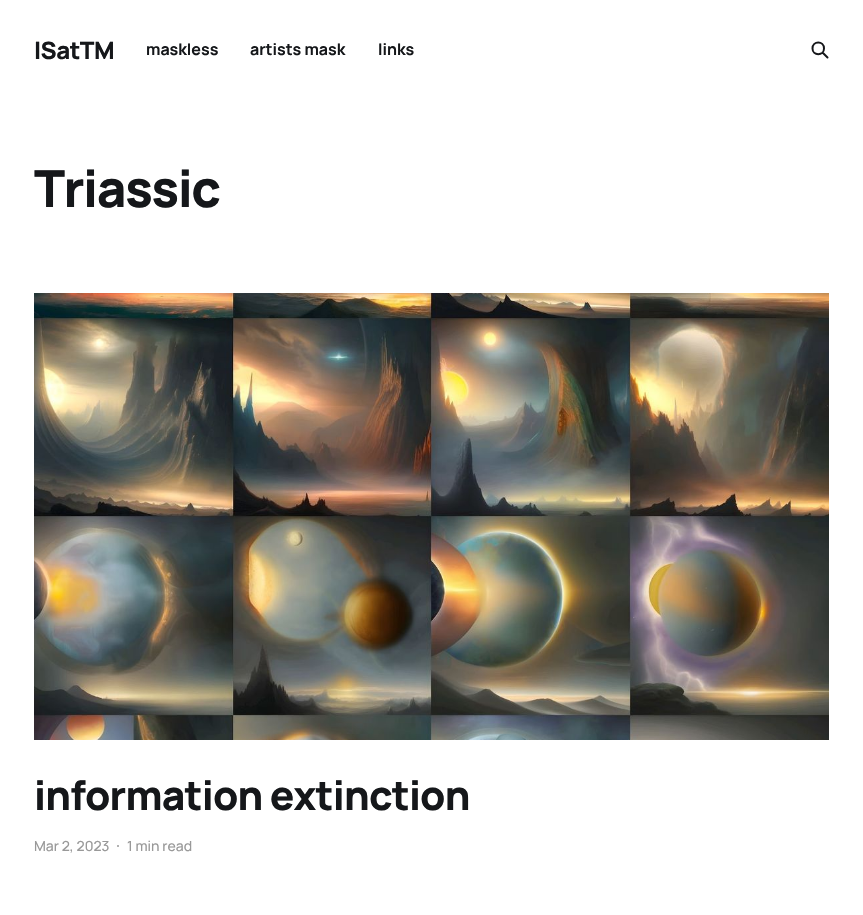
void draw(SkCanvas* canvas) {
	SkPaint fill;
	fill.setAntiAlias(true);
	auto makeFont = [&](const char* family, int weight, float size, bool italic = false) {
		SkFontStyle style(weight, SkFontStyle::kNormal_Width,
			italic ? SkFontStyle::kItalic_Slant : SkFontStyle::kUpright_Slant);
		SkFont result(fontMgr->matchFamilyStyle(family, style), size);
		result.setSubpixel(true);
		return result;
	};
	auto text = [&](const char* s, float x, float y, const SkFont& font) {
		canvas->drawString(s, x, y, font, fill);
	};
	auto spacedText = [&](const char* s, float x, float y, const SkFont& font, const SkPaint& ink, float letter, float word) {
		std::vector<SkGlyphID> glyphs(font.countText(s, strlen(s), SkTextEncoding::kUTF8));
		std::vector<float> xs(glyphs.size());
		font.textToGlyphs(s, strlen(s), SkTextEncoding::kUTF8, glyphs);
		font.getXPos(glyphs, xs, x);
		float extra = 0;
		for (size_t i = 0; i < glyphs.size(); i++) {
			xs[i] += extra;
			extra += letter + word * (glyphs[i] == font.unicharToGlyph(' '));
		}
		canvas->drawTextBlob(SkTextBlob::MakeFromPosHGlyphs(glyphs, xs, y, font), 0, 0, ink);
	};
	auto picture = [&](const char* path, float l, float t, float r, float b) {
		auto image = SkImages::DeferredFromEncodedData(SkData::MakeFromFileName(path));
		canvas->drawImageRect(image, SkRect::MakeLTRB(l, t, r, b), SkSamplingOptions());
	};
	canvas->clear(0xFFFFFFFF);
	fill.setStyle(SkPaint::kStroke_Style);
	fill.setStrokeWidth(2);
	fill.setStrokeCap(SkPaint::kRound_Cap);
	fill.setStrokeJoin(SkPaint::kRound_Join);
	fill.setColor(0xFF15171A);
	canvas->drawPath(SkPathBuilder().moveTo(827.5f, 57.5f).lineTo(822.5f, 52.5f).close().moveTo(824, 48.5f).cubicTo(824, 56, 812.5f, 56, 812.5f, 48.5f).cubicTo(812.5f, 40.5f, 824, 40.5f, 824, 48.5f).close().detach(), fill);
	picture("image0.png", 34, 293, 829, 740);
	fill.setStyle(SkPaint::kFill_Style);
	fill.setColor(0xFF999999);
	canvas->drawCircle(118, 846, 1, fill);
	auto font1 = makeFont("Manrope", 800, 24);
	fill.setColor(0xFF15171A);
	spacedText("ISatTM", 34, 59, font1, fill, -0.5f, 0);
	auto font2 = makeFont("Manrope", 700, 16);
	text("maskless", 146, 55, font2);
	text("artists mask", 250, 55, font2);
	text("links", 378, 55, font2);
	auto font3 = makeFont("Manrope", 800, 51);
	spacedText("Triassic", 34, 207, font3, fill, -1.5f, 0);
	auto font4 = makeFont("Manrope", 800, 40.5f);
	spacedText("information extinction", 34, 810, font4, fill, -0.8f, 0);
	auto font5 = makeFont("Manrope", 500, 14);
	fill.setColor(0xFF999999);
	text("Mar 2, 2023", 34, 851, font5);
	text("1 min read", 127, 851, font5);
}
